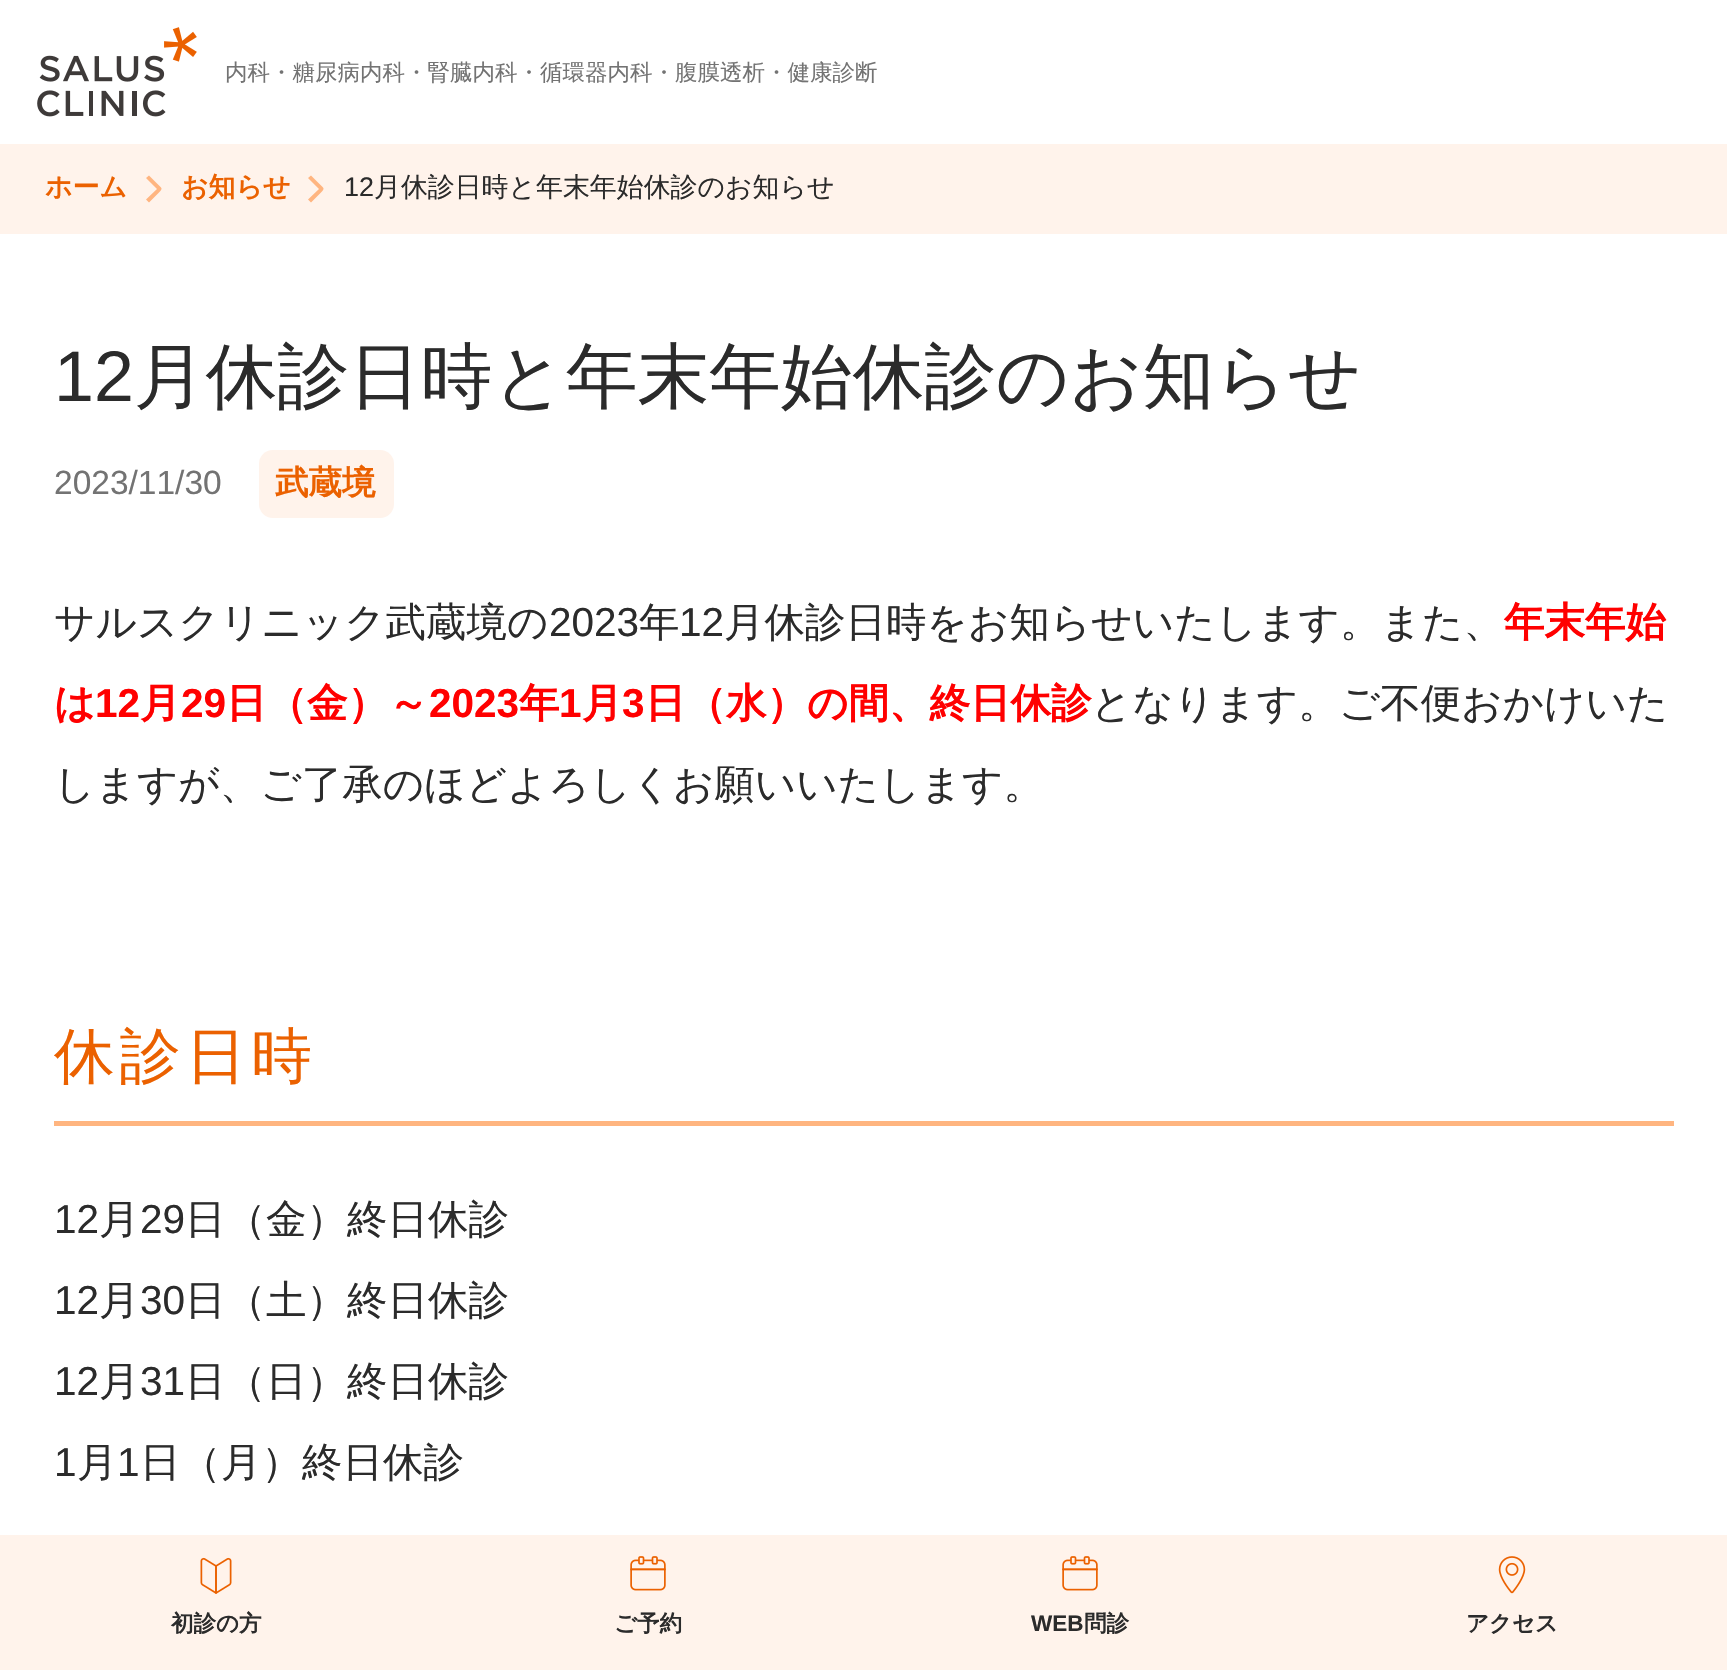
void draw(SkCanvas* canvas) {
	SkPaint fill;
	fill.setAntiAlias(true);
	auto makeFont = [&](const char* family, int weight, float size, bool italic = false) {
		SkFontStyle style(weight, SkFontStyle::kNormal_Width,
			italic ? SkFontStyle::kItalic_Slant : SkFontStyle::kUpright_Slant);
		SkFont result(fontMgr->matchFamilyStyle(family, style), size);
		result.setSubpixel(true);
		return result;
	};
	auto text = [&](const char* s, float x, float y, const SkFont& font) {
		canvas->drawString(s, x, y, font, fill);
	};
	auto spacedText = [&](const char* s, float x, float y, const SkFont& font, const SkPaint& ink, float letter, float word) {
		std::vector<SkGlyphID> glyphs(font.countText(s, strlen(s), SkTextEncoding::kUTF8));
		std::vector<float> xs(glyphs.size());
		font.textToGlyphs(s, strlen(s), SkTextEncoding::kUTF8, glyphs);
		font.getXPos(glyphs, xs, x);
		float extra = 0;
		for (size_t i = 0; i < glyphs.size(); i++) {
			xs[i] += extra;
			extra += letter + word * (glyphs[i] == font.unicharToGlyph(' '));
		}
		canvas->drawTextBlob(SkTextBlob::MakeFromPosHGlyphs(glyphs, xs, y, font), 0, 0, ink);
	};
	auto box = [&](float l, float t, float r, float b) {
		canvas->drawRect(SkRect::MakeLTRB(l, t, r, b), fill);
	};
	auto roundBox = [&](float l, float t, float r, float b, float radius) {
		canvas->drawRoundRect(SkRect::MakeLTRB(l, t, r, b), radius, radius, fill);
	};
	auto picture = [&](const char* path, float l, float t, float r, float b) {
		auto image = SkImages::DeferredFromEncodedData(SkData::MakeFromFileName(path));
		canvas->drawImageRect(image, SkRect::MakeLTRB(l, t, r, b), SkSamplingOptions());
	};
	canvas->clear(0xFFFFFFFF);
	picture("image0.png", 37, 27, 197, 117);
	fill.setColor(0xFFFFF3EB);
	box(0, 144, 1727, 234);
	fill.setColor(0xFFFFB580);
	canvas->drawPath(SkPathBuilder().moveTo(146, 178).lineTo(149, 175.5f).lineTo(157, 183.5f).cubicTo(161.5f, 188, 163.5f, 188, 159, 192.5f).lineTo(149, 202.5f).lineTo(146, 199.5f).lineTo(157, 189).close().detach(), fill);
	canvas->drawPath(SkPathBuilder().moveTo(308, 178).lineTo(311, 175.5f).lineTo(319, 183.5f).cubicTo(323.5f, 188, 325.5f, 188, 321, 192.5f).lineTo(311, 202.5f).lineTo(308, 199.5f).lineTo(319, 189).close().detach(), fill);
	fill.setColor(0xFFFFF3EB);
	roundBox(259, 450, 394, 518, 14);
	fill.setColor(0xFFFFB580);
	box(54, 1121, 1674, 1126);
	fill.setColor(0xFFFFF3EB);
	box(0, 1535, 1727, 1670);
	picture("image1.png", 200, 1557, 232, 1594);
	picture("image2.png", 630, 1556, 666, 1591);
	picture("image2.png", 1062, 1556, 1098, 1591);
	picture("image3.png", 1498, 1556, 1526, 1594);
	auto font1 = makeFont("WenQuanYi Zen Hei", 500, 22.5f);
	fill.setColor(0xFF737373);
	text("内科・糖尿病内科・腎臓内科・循環器内科・腹膜透析・健康診断", 225, 80, font1);
	auto font2 = makeFont("WenQuanYi Zen Hei", 700, 26.9f);
	fill.setColor(0xFFEB6100);
	text("ホーム", 45, 196, font2);
	text("お知らせ", 181, 196, font2);
	auto font3 = makeFont("Liberation Sans", 400, 26.9f);
	fill.setColor(0xFF2B2B2B);
	text("12", 344, 196, font3);
	auto font4 = makeFont("WenQuanYi Zen Hei", 500, 26.9f);
	text("月休診日時と年末年始休診のお知らせ", 374, 196, font4);
	auto font5 = makeFont("Liberation Sans", 400, 71.7f);
	text("12", 54, 401, font5);
	auto font6 = makeFont("WenQuanYi Zen Hei", 500, 71.7f);
	text("月休診日時と年末年始休診のお知らせ", 134, 401, font6);
	auto font7 = makeFont("Liberation Sans", 400, 33.5f);
	fill.setColor(0xFF737373);
	text("2023/11/30", 54, 494, font7);
	auto font8 = makeFont("WenQuanYi Zen Hei", 700, 33.5f);
	fill.setColor(0xFFEB6100);
	text("武蔵境", 275, 494, font8);
	auto font9 = makeFont("WenQuanYi Zen Hei", 500, 40.5f);
	fill.setColor(0xFF2B2B2B);
	text("サルスクリニック武蔵境の", 54, 636, font9);
	auto font10 = makeFont("Liberation Sans", 400, 40.5f);
	text("2023", 549, 636, font10);
	text("年", 639, 636, font9);
	text("12", 679, 636, font10);
	text("月休診日時をお知らせいたします。また、", 724, 636, font9);
	auto font11 = makeFont("WenQuanYi Zen Hei", 700, 40.5f);
	fill.setColor(0xFFFF0000);
	text("年末年始", 1504, 636, font11);
	text("は", 54, 717, font11);
	auto font12 = makeFont("Liberation Sans", 700, 40.5f);
	text("12", 95, 717, font12);
	text("月", 140, 717, font11);
	text("29", 181, 717, font12);
	text("日（金）～", 226, 717, font11);
	text("2023", 429, 717, font12);
	text("年", 519, 717, font11);
	text("1", 559, 717, font12);
	text("月", 582, 717, font11);
	text("3", 622, 717, font12);
	text("日（水）の間、終日休診", 645, 717, font11);
	fill.setColor(0xFF2B2B2B);
	text("となります。ご不便おかけいた", 1091, 717, font9);
	text("しますが、ご了承のほどよろしくお願いいたします。", 54, 798, font9);
	auto font13 = makeFont("WenQuanYi Zen Hei", 500, 60.75f);
	fill.setColor(0xFFEB6100);
	spacedText("休診日時", 54, 1077, font13, fill, 5, 0);
	fill.setColor(0xFF2B2B2B);
	text("12", 54, 1233, font10);
	text("月", 99, 1233, font9);
	text("29", 140, 1233, font10);
	text("日（金）終日休診", 185, 1233, font9);
	text("12", 54, 1314, font10);
	text("月", 99, 1314, font9);
	text("30", 140, 1314, font10);
	text("日（土）終日休診", 185, 1314, font9);
	text("12", 54, 1395, font10);
	text("月", 99, 1395, font9);
	text("31", 140, 1395, font10);
	text("日（日）終日休診", 185, 1395, font9);
	text("1", 54, 1476, font10);
	text("月", 77, 1476, font9);
	text("1", 117, 1476, font10);
	text("日（月）終日休診", 140, 1476, font9);
	auto font14 = makeFont("WenQuanYi Zen Hei", 700, 22.5f);
	text("初診の方", 171, 1631, font14);
	text("ご予約", 614, 1631, font14);
	auto font15 = makeFont("Liberation Sans", 700, 22.5f);
	text("WEB", 1031, 1631, font15);
	text("問診", 1084, 1631, font14);
	text("アクセス", 1466, 1631, font14);
}
